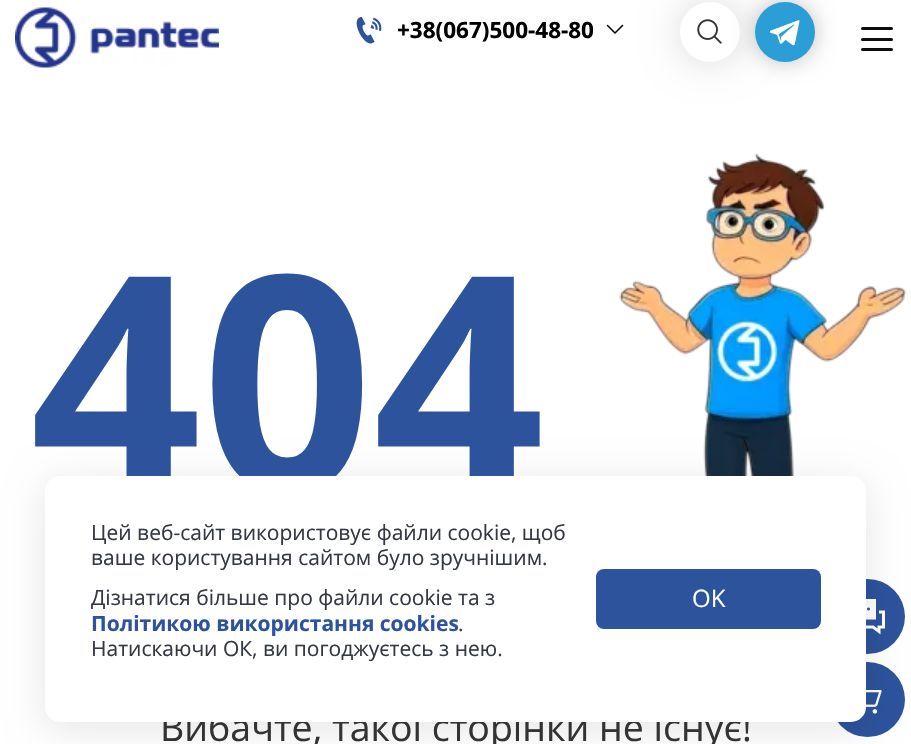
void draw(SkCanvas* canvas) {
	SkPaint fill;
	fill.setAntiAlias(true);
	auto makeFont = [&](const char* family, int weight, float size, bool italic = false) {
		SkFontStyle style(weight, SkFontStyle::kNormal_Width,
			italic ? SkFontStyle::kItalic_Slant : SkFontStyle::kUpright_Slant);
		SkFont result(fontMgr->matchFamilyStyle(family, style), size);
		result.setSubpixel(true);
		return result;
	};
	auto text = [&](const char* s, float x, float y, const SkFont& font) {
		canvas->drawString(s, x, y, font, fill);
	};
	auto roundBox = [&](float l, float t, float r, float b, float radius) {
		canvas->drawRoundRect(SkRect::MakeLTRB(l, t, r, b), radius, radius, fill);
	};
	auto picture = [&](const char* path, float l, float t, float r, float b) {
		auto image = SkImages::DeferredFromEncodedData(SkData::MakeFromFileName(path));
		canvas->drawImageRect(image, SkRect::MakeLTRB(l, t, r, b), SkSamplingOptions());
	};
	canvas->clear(0xFFFFFFFF);
	picture("image0.png", 15, 7, 219, 68);
	canvas->save();
	canvas->clipPath(SkPathBuilder(SkPathFillType::kEvenOdd).moveTo(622, 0).lineTo(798, 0).lineTo(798, 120).lineTo(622, 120).close().moveTo(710, 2).cubicTo(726.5f, 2, 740, 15.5f, 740, 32).cubicTo(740, 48.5f, 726.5f, 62, 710, 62).cubicTo(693.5f, 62, 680, 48.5f, 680, 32).cubicTo(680, 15.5f, 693.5f, 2, 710, 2).close().detach(), true);
	fill.setColor(0x26000000);
	fill.setMaskFilter(SkMaskFilter::MakeBlur(kNormal_SkBlurStyle, 19));
	canvas->drawRoundRect(SkRect::MakeLTRB(680, 2, 740, 62), 30, 30, fill);
	fill.setMaskFilter(nullptr);
	canvas->restore();
	picture("image1.png", 697, 19, 722, 44);
	picture("image2.png", 356, 17, 382, 44);
	picture("image3.png", 606, 24, 624, 34);
	fill.setColor(0x40000000);
	fill.setMaskFilter(SkMaskFilter::MakeBlur(kNormal_SkBlurStyle, 11));
	canvas->drawRoundRect(SkRect::MakeLTRB(755, 2, 815, 62), 30, 30, fill);
	fill.setMaskFilter(nullptr);
	fill.setColor(0xFF2A9ED5);
	canvas->drawCircle(785, 32, 30, fill);
	picture("image4.png", 770, 20, 800, 46);
	fill.setColor(0xFF0D0D0D);
	roundBox(861, 38, 893, 41, 1.5f);
	roundBox(861, 27, 893, 30, 1.5f);
	roundBox(861, 48, 893, 51, 1.5f);
	picture("image5.png", 619, 153, 907, 476);
	fill.setColor(0xFF2C539C);
	canvas->drawCircle(867.5f, 616.5f, 37.5f, fill);
	picture("image6.png", 866, 599, 885, 635);
	canvas->drawCircle(867.5f, 699.5f, 37.5f, fill);
	picture("image7.png", 866, 690, 882, 714);
	fill.setColor(0x1A000000);
	fill.setMaskFilter(SkMaskFilter::MakeBlur(kNormal_SkBlurStyle, 19));
	canvas->drawRoundRect(SkRect::MakeLTRB(45, 483, 866, 729), 15, 15, fill);
	fill.setMaskFilter(nullptr);
	auto font1 = makeFont("Open Sans", 700, 22.5f);
	fill.setColor(0xFF000000);
	text("+38(067)500-48-80", 397, 38, font1);
	auto font2 = makeFont("Open Sans", 700, 300);
	fill.setColor(0xFF2C539C);
	text("404", 30, 491, font2);
	auto font3 = makeFont("Open Sans", 400, 37.5f);
	fill.setColor(0xFF333333);
	text("Вибачте, такої сторінки не існує!", 160, 741, font3);
	fill.setColor(0xFFFFFFFF);
	roundBox(45, 476, 866, 722, 15);
	auto font4 = makeFont("Open Sans", 400, 21);
	fill.setColor(0xFF333842);
	text("Цей веб-сайт використовує файли cookie, щоб", 91, 540, font4);
	text("ваше користування сайтом було зручнішим.", 91, 565, font4);
	text("Дізнатися більше про файли cookie та з", 91, 605, font4);
	auto font5 = makeFont("Open Sans", 700, 21);
	fill.setColor(0xFF2C539C);
	text("Політикою використання cookies", 91, 631, font5);
	fill.setColor(0xFF333842);
	text(".", 458, 631, font4);
	text("Натискаючи ОК, ви погоджуєтесь з нею.", 91, 656, font4);
	fill.setColor(0xFF2C539C);
	roundBox(596, 569, 821, 629, 8);
	auto font6 = makeFont("Open Sans", 400, 24);
	fill.setColor(0xFFFFFFFF);
	text("OK", 692, 607, font6);
}
